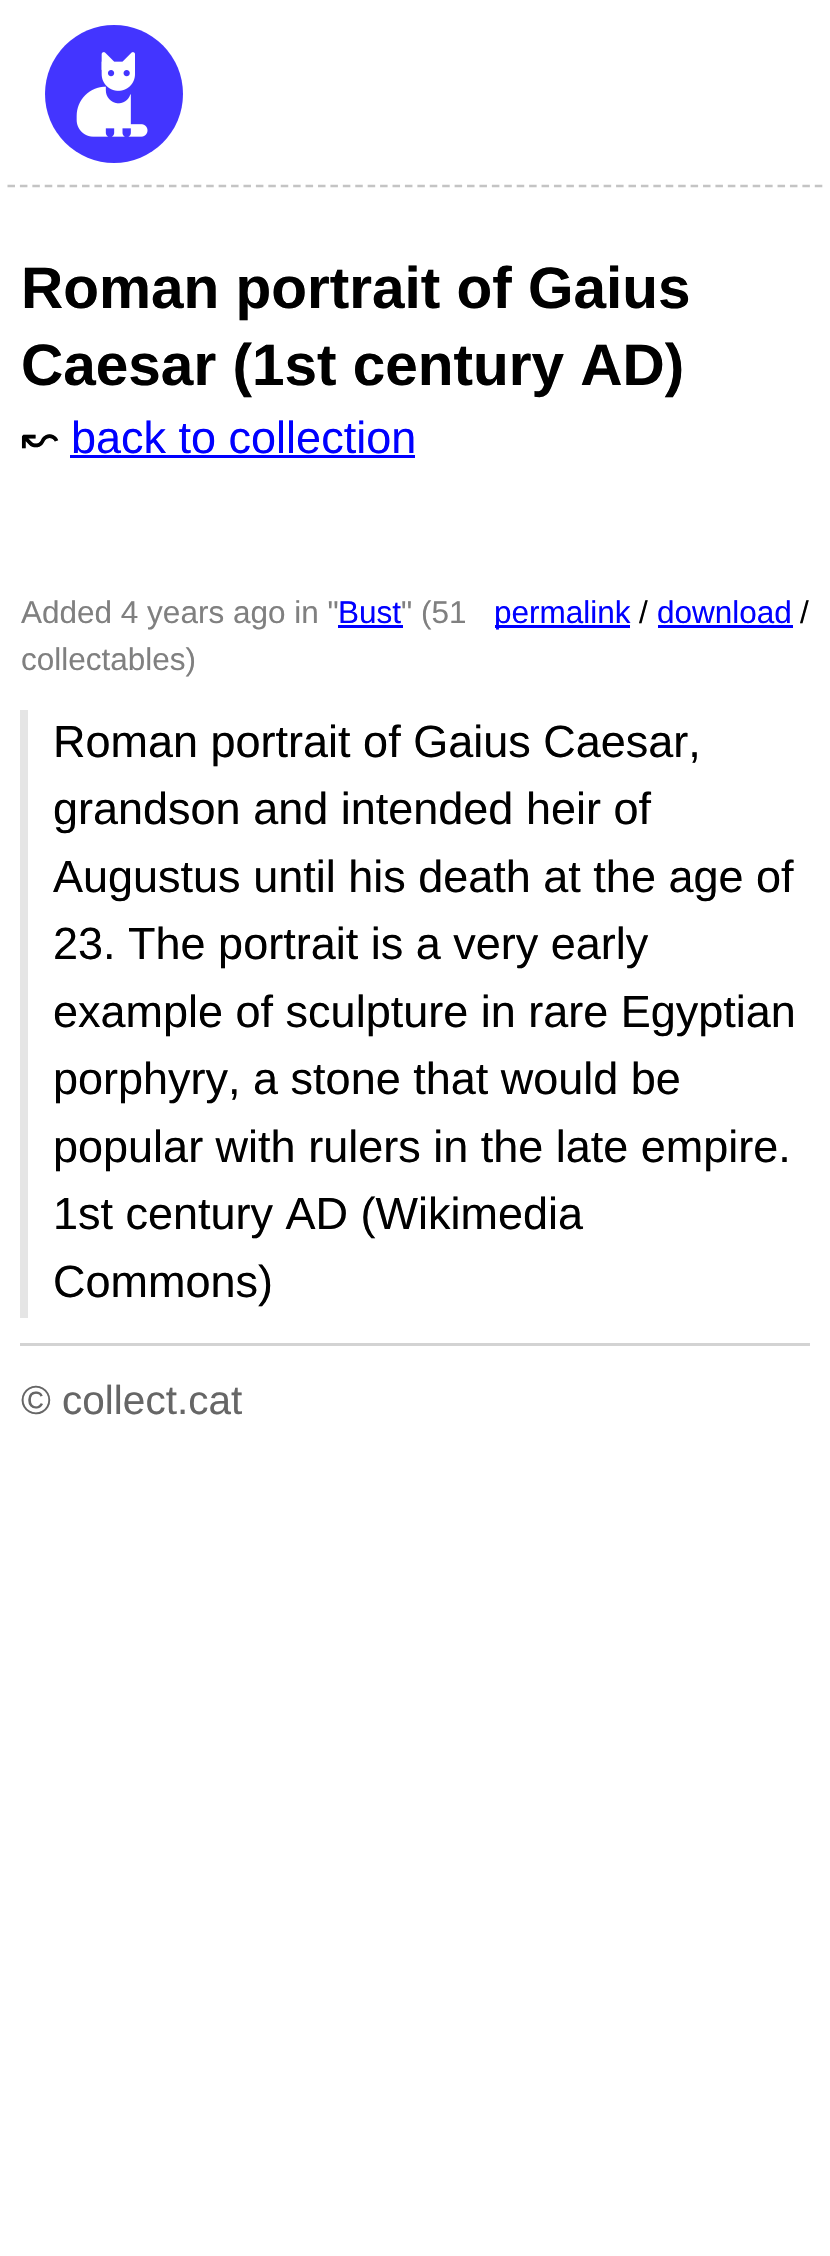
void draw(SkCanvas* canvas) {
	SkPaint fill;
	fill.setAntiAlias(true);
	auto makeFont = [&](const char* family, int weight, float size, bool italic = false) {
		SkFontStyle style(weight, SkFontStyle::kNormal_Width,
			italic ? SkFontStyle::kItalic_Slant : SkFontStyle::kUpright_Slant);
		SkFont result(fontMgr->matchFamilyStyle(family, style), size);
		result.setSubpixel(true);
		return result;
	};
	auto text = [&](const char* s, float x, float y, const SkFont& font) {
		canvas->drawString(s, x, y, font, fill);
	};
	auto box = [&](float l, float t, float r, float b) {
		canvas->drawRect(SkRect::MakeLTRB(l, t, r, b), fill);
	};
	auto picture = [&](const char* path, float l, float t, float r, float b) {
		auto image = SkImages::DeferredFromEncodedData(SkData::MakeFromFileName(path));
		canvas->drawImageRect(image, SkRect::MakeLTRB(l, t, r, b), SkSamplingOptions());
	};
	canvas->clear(0xFFFFFFFF);
	fill.setStyle(SkPaint::kStroke_Style);
	fill.setStrokeWidth(2.5f);
	fill.setColor(0xFFC4C4C4);
	fill.setPathEffect(SkDashPathEffect::Make({{7.5f, 4.92f}}, 0));
	canvas->drawPath(SkPathBuilder().moveTo(7.5f, 186).lineTo(822.5f, 186).detach(), fill);
	fill.setPathEffect(nullptr);
	fill.setStyle(SkPaint::kFill_Style);
	fill.setColor(0xFF4335FF);
	canvas->drawCircle(114, 94, 69, fill);
	picture("image0.png", 76, 52, 148, 137);
	fill.setColor(0xFF0000FF);
	box(70, 455, 415, 458);
	box(338, 625, 403, 628);
	box(495, 625, 630, 628);
	box(658, 625, 793, 628);
	fill.setColor(0xFFE5E5E5);
	box(20, 710, 28, 1318);
	fill.setColor(0xFFD3D3D3);
	box(20, 1343, 810, 1346);
	auto font1 = makeFont("Liberation Sans", 700, 58.5f);
	fill.setColor(0xFF000000);
	text("Roman portrait of Gaius", 21, 308, font1);
	text("Caesar (1st century AD)", 21, 385, font1);
	auto font2 = makeFont("DejaVu Sans", 400, 45);
	text("↜", 21, 453, font2);
	auto font3 = makeFont("Liberation Sans", 400, 45);
	fill.setColor(0xFF0000FF);
	text("back to collection", 71, 453, font3);
	auto font4 = makeFont("Liberation Sans", 400, 31.5f);
	fill.setColor(0xFF808080);
	text("Added 4 years ago in \"", 21, 623, font4);
	fill.setColor(0xFF0000FF);
	text("Bust", 338, 623, font4);
	fill.setColor(0xFF808080);
	text("\" (51", 401, 623, font4);
	text("collectables)", 21, 670, font4);
	fill.setColor(0xFF0000FF);
	text("permalink", 494, 623, font4);
	fill.setColor(0xFF000000);
	text("/", 639, 623, font4);
	fill.setColor(0xFF0000FF);
	text("download", 657, 623, font4);
	fill.setColor(0xFF000000);
	text("/", 800, 623, font4);
	text("Roman portrait of Gaius Caesar,", 53, 757, font3);
	text("grandson and intended heir of", 53, 824, font3);
	text("Augustus until his death at the age of", 53, 892, font3);
	text("23. The portrait is a very early", 53, 959, font3);
	text("example of sculpture in rare Egyptian", 53, 1027, font3);
	text("porphyry, a stone that would be", 53, 1094, font3);
	text("popular with rulers in the late empire.", 53, 1162, font3);
	text("1st century AD (Wikimedia", 53, 1229, font3);
	text("Commons)", 53, 1297, font3);
	auto font5 = makeFont("Liberation Sans", 400, 40.5f);
	fill.setColor(0xFF666666);
	text("© collect.cat", 21, 1414, font5);
}
